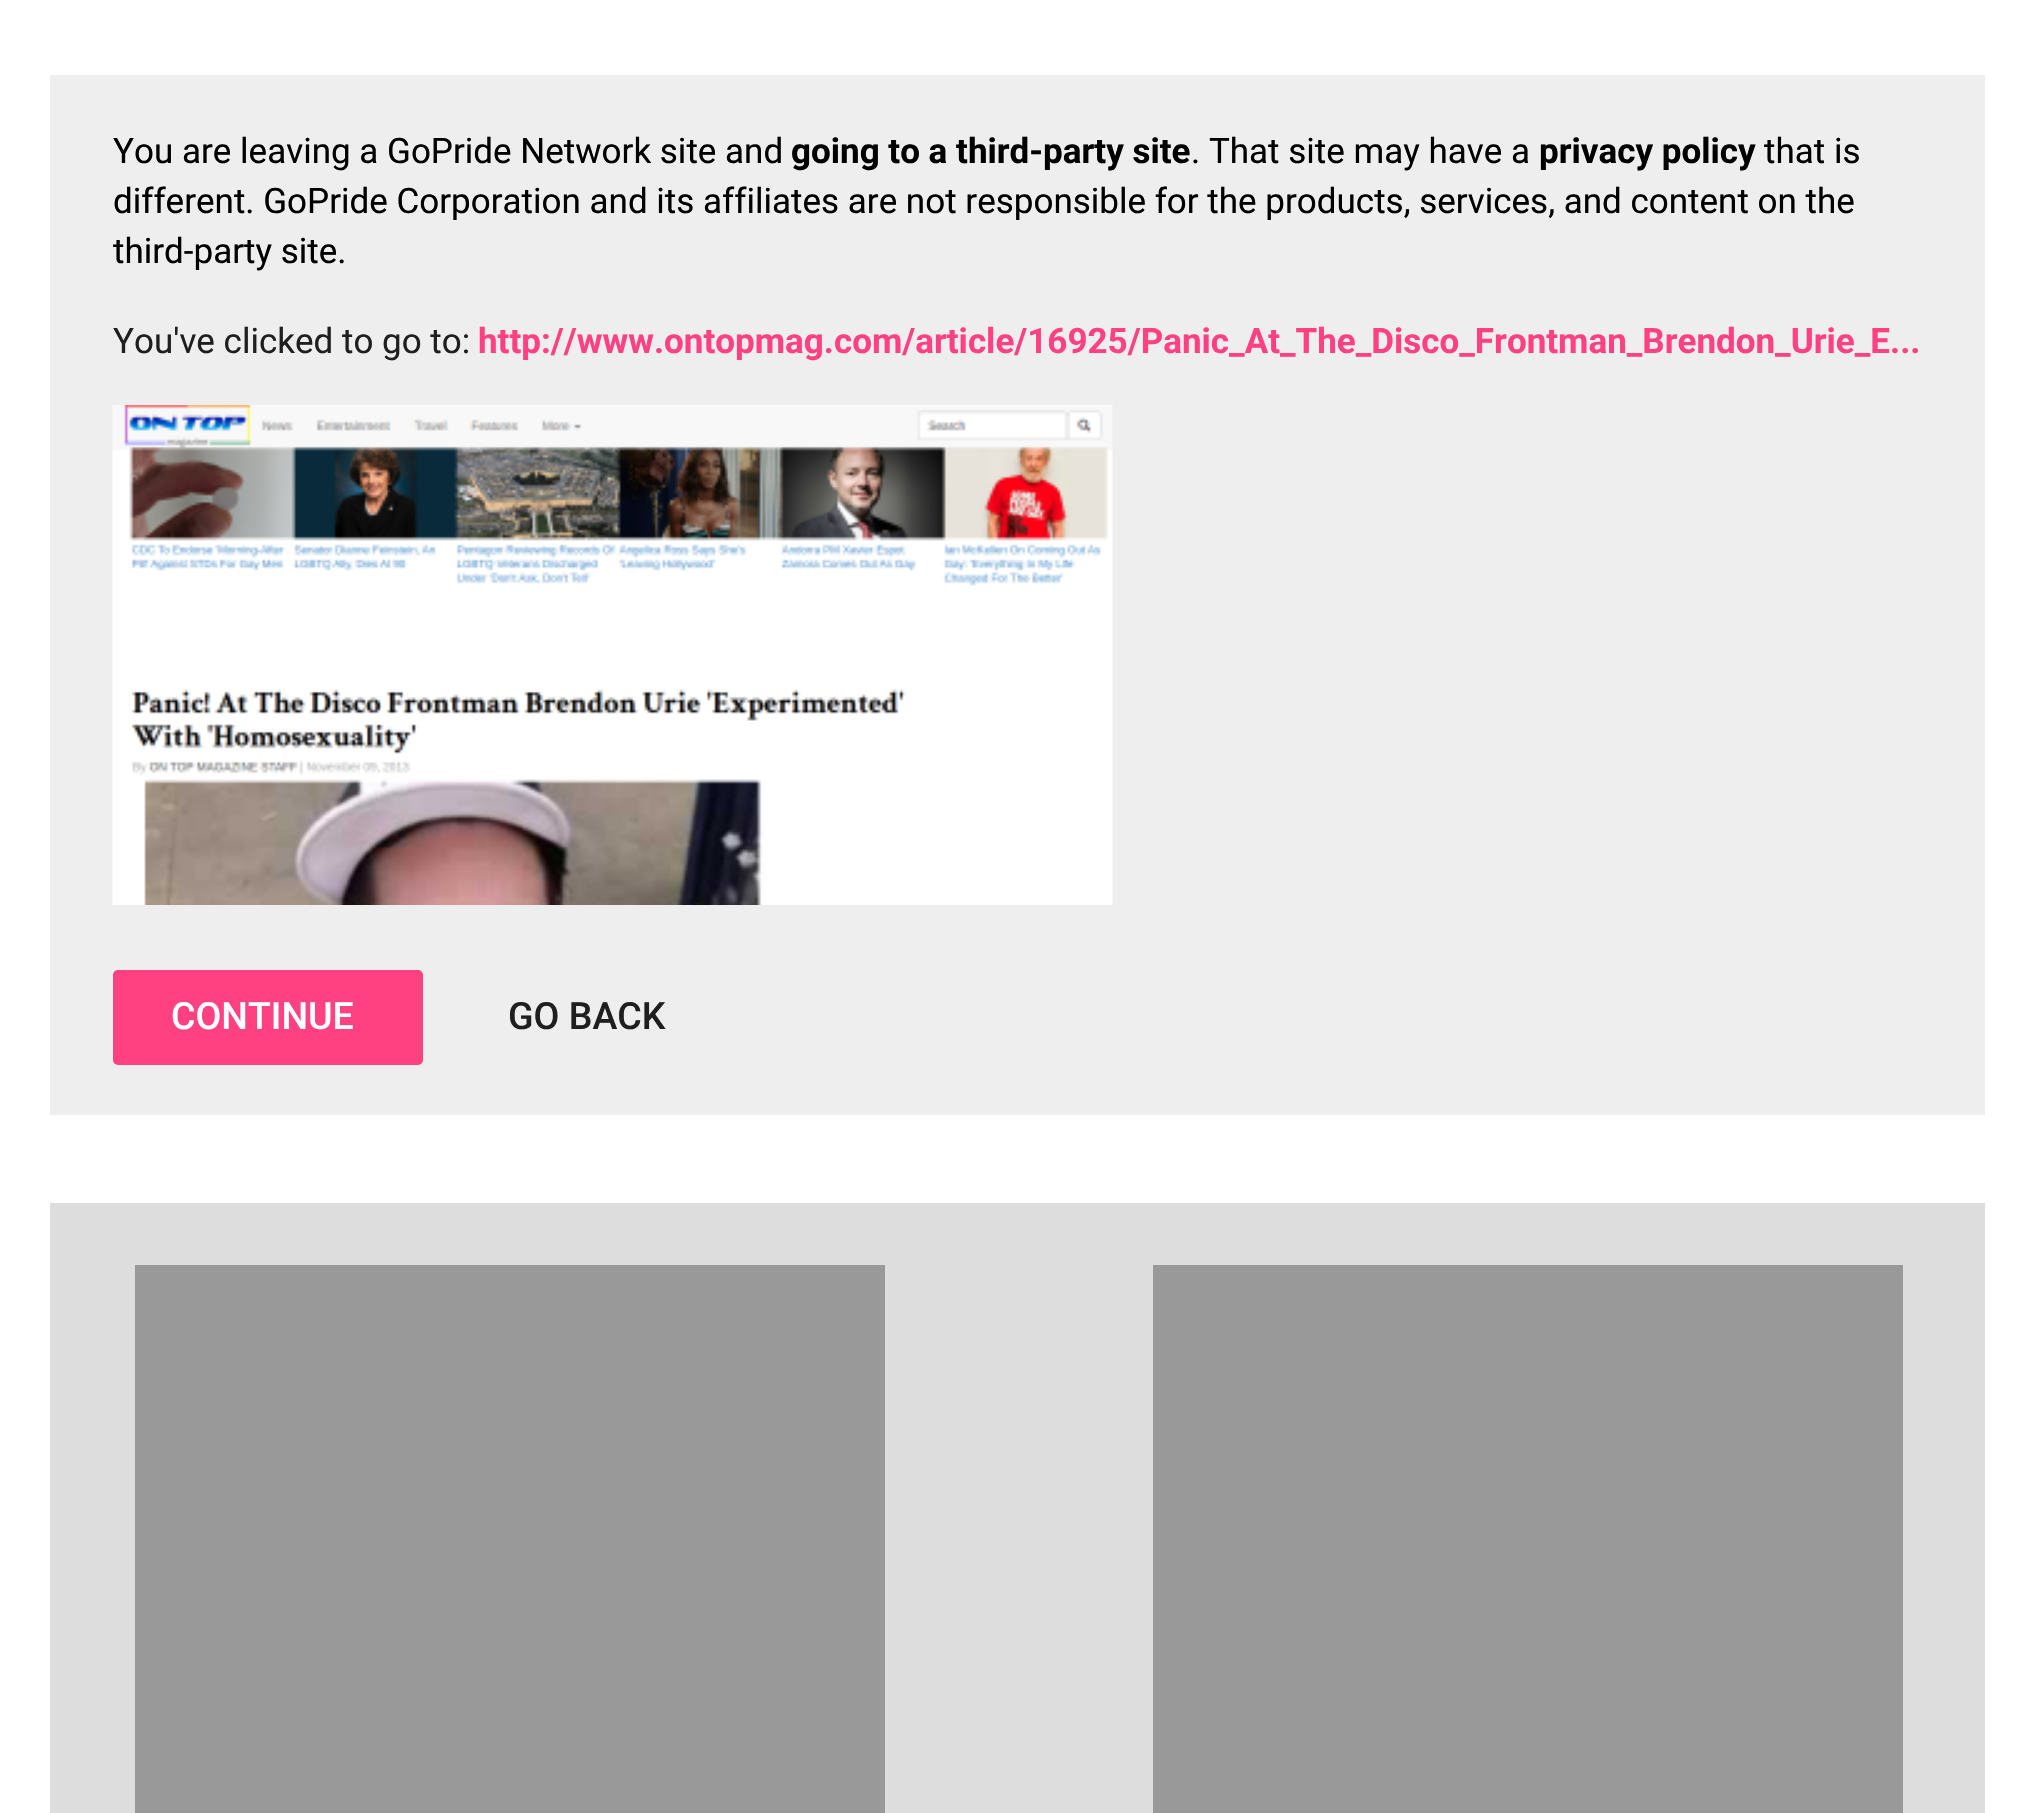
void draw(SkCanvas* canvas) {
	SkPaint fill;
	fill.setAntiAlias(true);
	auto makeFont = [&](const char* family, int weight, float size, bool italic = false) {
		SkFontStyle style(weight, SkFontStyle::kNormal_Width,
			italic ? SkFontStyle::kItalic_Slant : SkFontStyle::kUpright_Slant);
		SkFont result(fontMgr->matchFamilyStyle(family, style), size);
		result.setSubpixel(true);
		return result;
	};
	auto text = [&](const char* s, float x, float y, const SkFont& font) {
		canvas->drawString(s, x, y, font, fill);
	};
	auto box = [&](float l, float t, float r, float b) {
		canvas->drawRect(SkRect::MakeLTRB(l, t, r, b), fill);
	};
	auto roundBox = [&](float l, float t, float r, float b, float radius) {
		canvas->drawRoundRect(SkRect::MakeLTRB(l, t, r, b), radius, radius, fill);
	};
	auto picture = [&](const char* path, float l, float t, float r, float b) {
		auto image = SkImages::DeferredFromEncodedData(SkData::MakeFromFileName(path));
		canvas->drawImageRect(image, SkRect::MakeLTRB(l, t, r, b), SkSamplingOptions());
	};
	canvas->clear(0xFFFFFFFF);
	fill.setColor(0xFFEEEEEE);
	box(50, 75, 1985, 1115);
	picture("image0.png", 112, 405, 1113, 905);
	fill.setColor(0xFFFF4081);
	roundBox(113, 970, 423, 1065, 5);
	fill.setColor(0xFFDDDDDD);
	box(50, 1203, 1985, 1813);
	fill.setColor(0xFF999999);
	box(135, 1265, 885, 1813);
	box(1153, 1265, 1903, 1813);
	auto font1 = makeFont("Roboto", 400, 35);
	fill.setColor(0xFF000000);
	text("You are leaving a GoPride Network site and", 113, 163, font1);
	auto font2 = makeFont("Roboto", 700, 35);
	text("going to a third-party site", 791, 163, font2);
	text(". That site may have a", 1191, 163, font1);
	text("privacy policy", 1539, 163, font2);
	text("that is", 1764, 163, font1);
	text("different. GoPride Corporation and its affiliates are not responsible for the products, services, and content on the", 113, 213, font1);
	text("third-party site.", 113, 263, font1);
	fill.setColor(0xFF1F1F1F);
	text("You've clicked to go to:", 113, 353, font1);
	fill.setColor(0xFFFF4081);
	text("http://www.ontopmag.com/article/16925/Panic_At_The_Disco_Frontman_Brendon_Urie_E...", 478, 353, font2);
	auto font3 = makeFont("Roboto", 500, 37.5f);
	fill.setColor(0xFFFFFFFF);
	text("CONTINUE", 171, 1029, font3);
	fill.setColor(0xFF1F1F1F);
	text("GO BACK", 508, 1029, font3);
}
